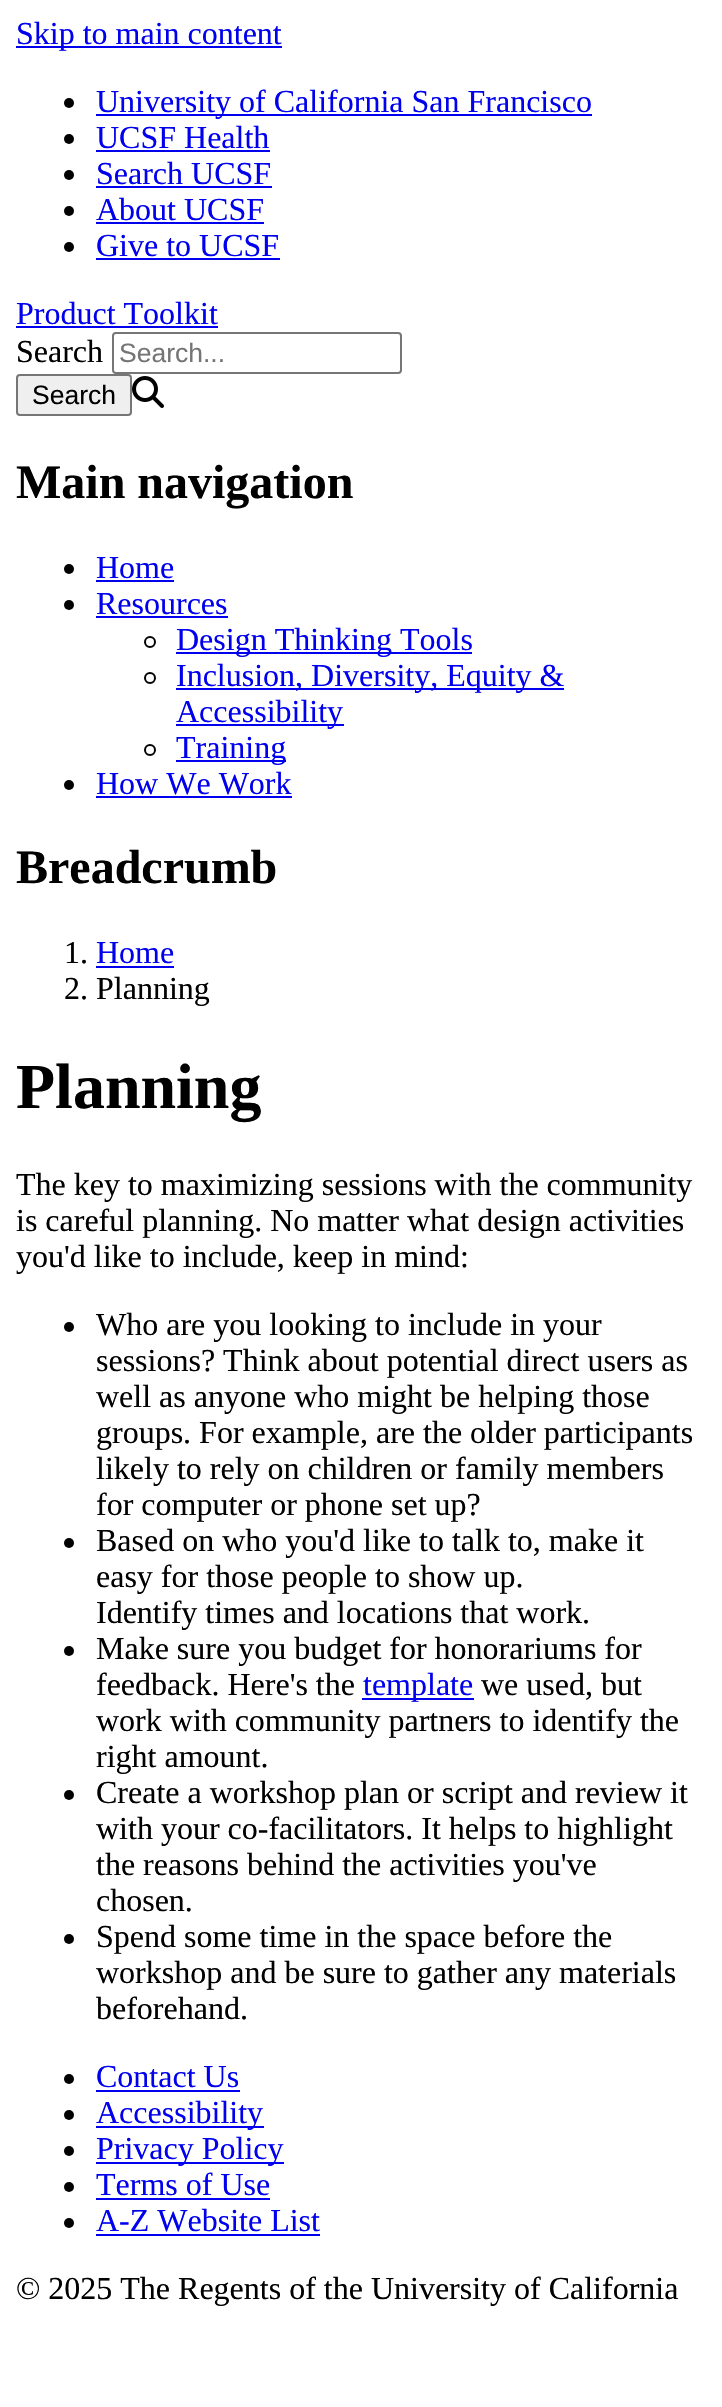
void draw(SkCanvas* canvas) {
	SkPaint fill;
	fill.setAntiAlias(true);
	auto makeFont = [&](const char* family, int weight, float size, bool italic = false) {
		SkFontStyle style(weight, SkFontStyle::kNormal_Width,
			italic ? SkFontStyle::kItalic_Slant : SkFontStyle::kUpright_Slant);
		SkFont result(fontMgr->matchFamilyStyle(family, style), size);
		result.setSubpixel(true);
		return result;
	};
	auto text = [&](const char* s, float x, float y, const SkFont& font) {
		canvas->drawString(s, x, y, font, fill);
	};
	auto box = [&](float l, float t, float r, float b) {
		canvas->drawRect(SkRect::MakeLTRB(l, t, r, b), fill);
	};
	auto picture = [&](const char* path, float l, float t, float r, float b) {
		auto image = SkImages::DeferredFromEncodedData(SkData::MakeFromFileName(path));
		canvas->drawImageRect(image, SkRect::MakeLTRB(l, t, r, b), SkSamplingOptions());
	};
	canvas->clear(0xFFFFFFFF);
	fill.setColor(0xFF0000EE);
	box(16, 46, 282, 48);
	fill.setColor(0xFF000000);
	canvas->drawCircle(69, 103, 5, fill);
	fill.setColor(0xFF0000EE);
	box(96, 114, 592, 116);
	fill.setColor(0xFF000000);
	canvas->drawCircle(69, 139, 5, fill);
	fill.setColor(0xFF0000EE);
	box(96, 150, 270, 152);
	fill.setColor(0xFF000000);
	canvas->drawCircle(69, 175, 5, fill);
	fill.setColor(0xFF0000EE);
	box(96, 186, 272, 188);
	fill.setColor(0xFF000000);
	canvas->drawCircle(69, 211, 5, fill);
	fill.setColor(0xFF0000EE);
	box(96, 222, 264, 224);
	fill.setColor(0xFF000000);
	canvas->drawCircle(69, 247, 5, fill);
	fill.setColor(0xFF0000EE);
	box(96, 258, 280, 260);
	box(16, 326, 218, 328);
	fill.setStyle(SkPaint::kStroke_Style);
	fill.setStrokeWidth(2);
	fill.setColor(0xFF767676);
	canvas->drawRoundRect(SkRect::MakeLTRB(113, 333, 401, 373), 3, 3, fill);
	fill.setStyle(SkPaint::kFill_Style);
	fill.setColor(0xFFEFEFEF);
	canvas->drawRoundRect(SkRect::MakeLTRB(17, 375, 131, 415), 3, 3, fill);
	fill.setStyle(SkPaint::kStroke_Style);
	fill.setColor(0xFF767676);
	canvas->drawRoundRect(SkRect::MakeLTRB(17, 375, 131, 415), 3, 3, fill);
	picture("image0.png", 132, 376, 164, 408);
	fill.setStyle(SkPaint::kFill_Style);
	fill.setColor(0xFF000000);
	canvas->drawCircle(69, 569, 5, fill);
	fill.setColor(0xFF0000EE);
	box(96, 580, 174, 582);
	fill.setColor(0xFF000000);
	canvas->drawCircle(69, 605, 5, fill);
	fill.setColor(0xFF0000EE);
	box(96, 616, 228, 618);
	fill.setStyle(SkPaint::kStroke_Style);
	fill.setColor(0xFF000000);
	canvas->drawCircle(150, 642, 5, fill);
	fill.setStyle(SkPaint::kFill_Style);
	fill.setColor(0xFF0000EE);
	box(176, 652, 472, 654);
	fill.setStyle(SkPaint::kStroke_Style);
	fill.setColor(0xFF000000);
	canvas->drawCircle(150, 678, 5, fill);
	fill.setStyle(SkPaint::kFill_Style);
	fill.setColor(0xFF0000EE);
	box(176, 688, 564, 690);
	box(176, 724, 344, 726);
	fill.setStyle(SkPaint::kStroke_Style);
	fill.setColor(0xFF000000);
	canvas->drawCircle(150, 750, 5, fill);
	fill.setStyle(SkPaint::kFill_Style);
	fill.setColor(0xFF0000EE);
	box(176, 760, 286, 762);
	fill.setColor(0xFF000000);
	canvas->drawCircle(69, 785, 5, fill);
	fill.setColor(0xFF0000EE);
	box(96, 796, 292, 798);
	box(96, 966, 174, 968);
	fill.setColor(0xFF000000);
	canvas->drawCircle(69, 1327, 5, fill);
	canvas->drawCircle(69, 1543, 5, fill);
	canvas->drawCircle(69, 1651, 5, fill);
	fill.setColor(0xFF0000EE);
	box(362, 1698, 474, 1700);
	fill.setColor(0xFF000000);
	canvas->drawCircle(69, 1795, 5, fill);
	canvas->drawCircle(69, 1939, 5, fill);
	canvas->drawCircle(69, 2079, 5, fill);
	fill.setColor(0xFF0000EE);
	box(96, 2090, 240, 2092);
	fill.setColor(0xFF000000);
	canvas->drawCircle(69, 2115, 5, fill);
	fill.setColor(0xFF0000EE);
	box(96, 2126, 264, 2128);
	fill.setColor(0xFF000000);
	canvas->drawCircle(69, 2151, 5, fill);
	fill.setColor(0xFF0000EE);
	box(96, 2162, 284, 2164);
	fill.setColor(0xFF000000);
	canvas->drawCircle(69, 2187, 5, fill);
	fill.setColor(0xFF0000EE);
	box(96, 2198, 270, 2200);
	fill.setColor(0xFF000000);
	canvas->drawCircle(69, 2223, 5, fill);
	fill.setColor(0xFF0000EE);
	box(96, 2234, 320, 2236);
	auto font1 = makeFont("Liberation Serif", 400, 32);
	text("Skip to main content", 16, 44, font1);
	text("University of California San Francisco", 96, 112, font1);
	text("UCSF Health", 96, 148, font1);
	text("Search UCSF", 96, 184, font1);
	text("About UCSF", 96, 220, font1);
	text("Give to UCSF", 96, 256, font1);
	text("Product Toolkit", 16, 324, font1);
	fill.setColor(0xFF000000);
	text("Search", 16, 362, font1);
	auto font2 = makeFont("Liberation Sans", 400, 26.5f);
	fill.setColor(0xFF757575);
	text("Search...", 119, 362, font2);
	fill.setColor(0xFF000000);
	text("Search", 32, 404, font2);
	auto font3 = makeFont("Liberation Serif", 700, 48);
	text("Main navigation", 16, 498, font3);
	fill.setColor(0xFF0000EE);
	text("Home", 96, 578, font1);
	text("Resources", 96, 614, font1);
	text("Design Thinking Tools", 176, 650, font1);
	text("Inclusion, Diversity, Equity &", 176, 686, font1);
	text("Accessibility", 176, 722, font1);
	text("Training", 176, 758, font1);
	text("How We Work", 96, 794, font1);
	fill.setColor(0xFF000000);
	text("Breadcrumb", 16, 883, font3);
	text("1.", 64, 963, font1);
	fill.setColor(0xFF0000EE);
	text("Home", 96, 963, font1);
	fill.setColor(0xFF000000);
	text("2. Planning", 64, 999, font1);
	auto font4 = makeFont("Liberation Serif", 700, 64);
	text("Planning", 16, 1108, font4);
	text("The key to maximizing sessions with the community", 16, 1195, font1);
	text("is careful planning. No matter what design activities", 16, 1231, font1);
	text("you'd like to include, keep in mind:", 16, 1267, font1);
	text("Who are you looking to include in your", 96, 1335, font1);
	text("sessions? Think about potential direct users as", 96, 1371, font1);
	text("well as anyone who might be helping those", 96, 1407, font1);
	text("groups. For example, are the older participants", 96, 1443, font1);
	text("likely to rely on children or family members", 96, 1479, font1);
	text("for computer or phone set up?", 96, 1515, font1);
	text("Based on who you'd like to talk to, make it", 96, 1551, font1);
	text("easy for those people to show up.", 96, 1587, font1);
	text("Identify times and locations that work.", 96, 1623, font1);
	text("Make sure you budget for honorariums for", 96, 1659, font1);
	text("feedback. Here's the", 96, 1695, font1);
	fill.setColor(0xFF0000EE);
	text("template", 363, 1695, font1);
	fill.setColor(0xFF000000);
	text("we used, but", 481, 1695, font1);
	text("work with community partners to identify the", 96, 1731, font1);
	text("right amount.", 96, 1767, font1);
	text("Create a workshop plan or script and review it", 96, 1803, font1);
	text("with your co-facilitators. It helps to highlight", 96, 1839, font1);
	text("the reasons behind the activities you've", 96, 1875, font1);
	text("chosen.", 96, 1911, font1);
	text("Spend some time in the space before the", 96, 1947, font1);
	text("workshop and be sure to gather any materials", 96, 1983, font1);
	text("beforehand.", 96, 2019, font1);
	fill.setColor(0xFF0000EE);
	text("Contact Us", 96, 2087, font1);
	text("Accessibility", 96, 2123, font1);
	text("Privacy Policy", 96, 2159, font1);
	text("Terms of Use", 96, 2195, font1);
	text("A-Z Website List", 96, 2231, font1);
	fill.setColor(0xFF000000);
	text("© 2025 The Regents of the University of California", 16, 2299, font1);
}
